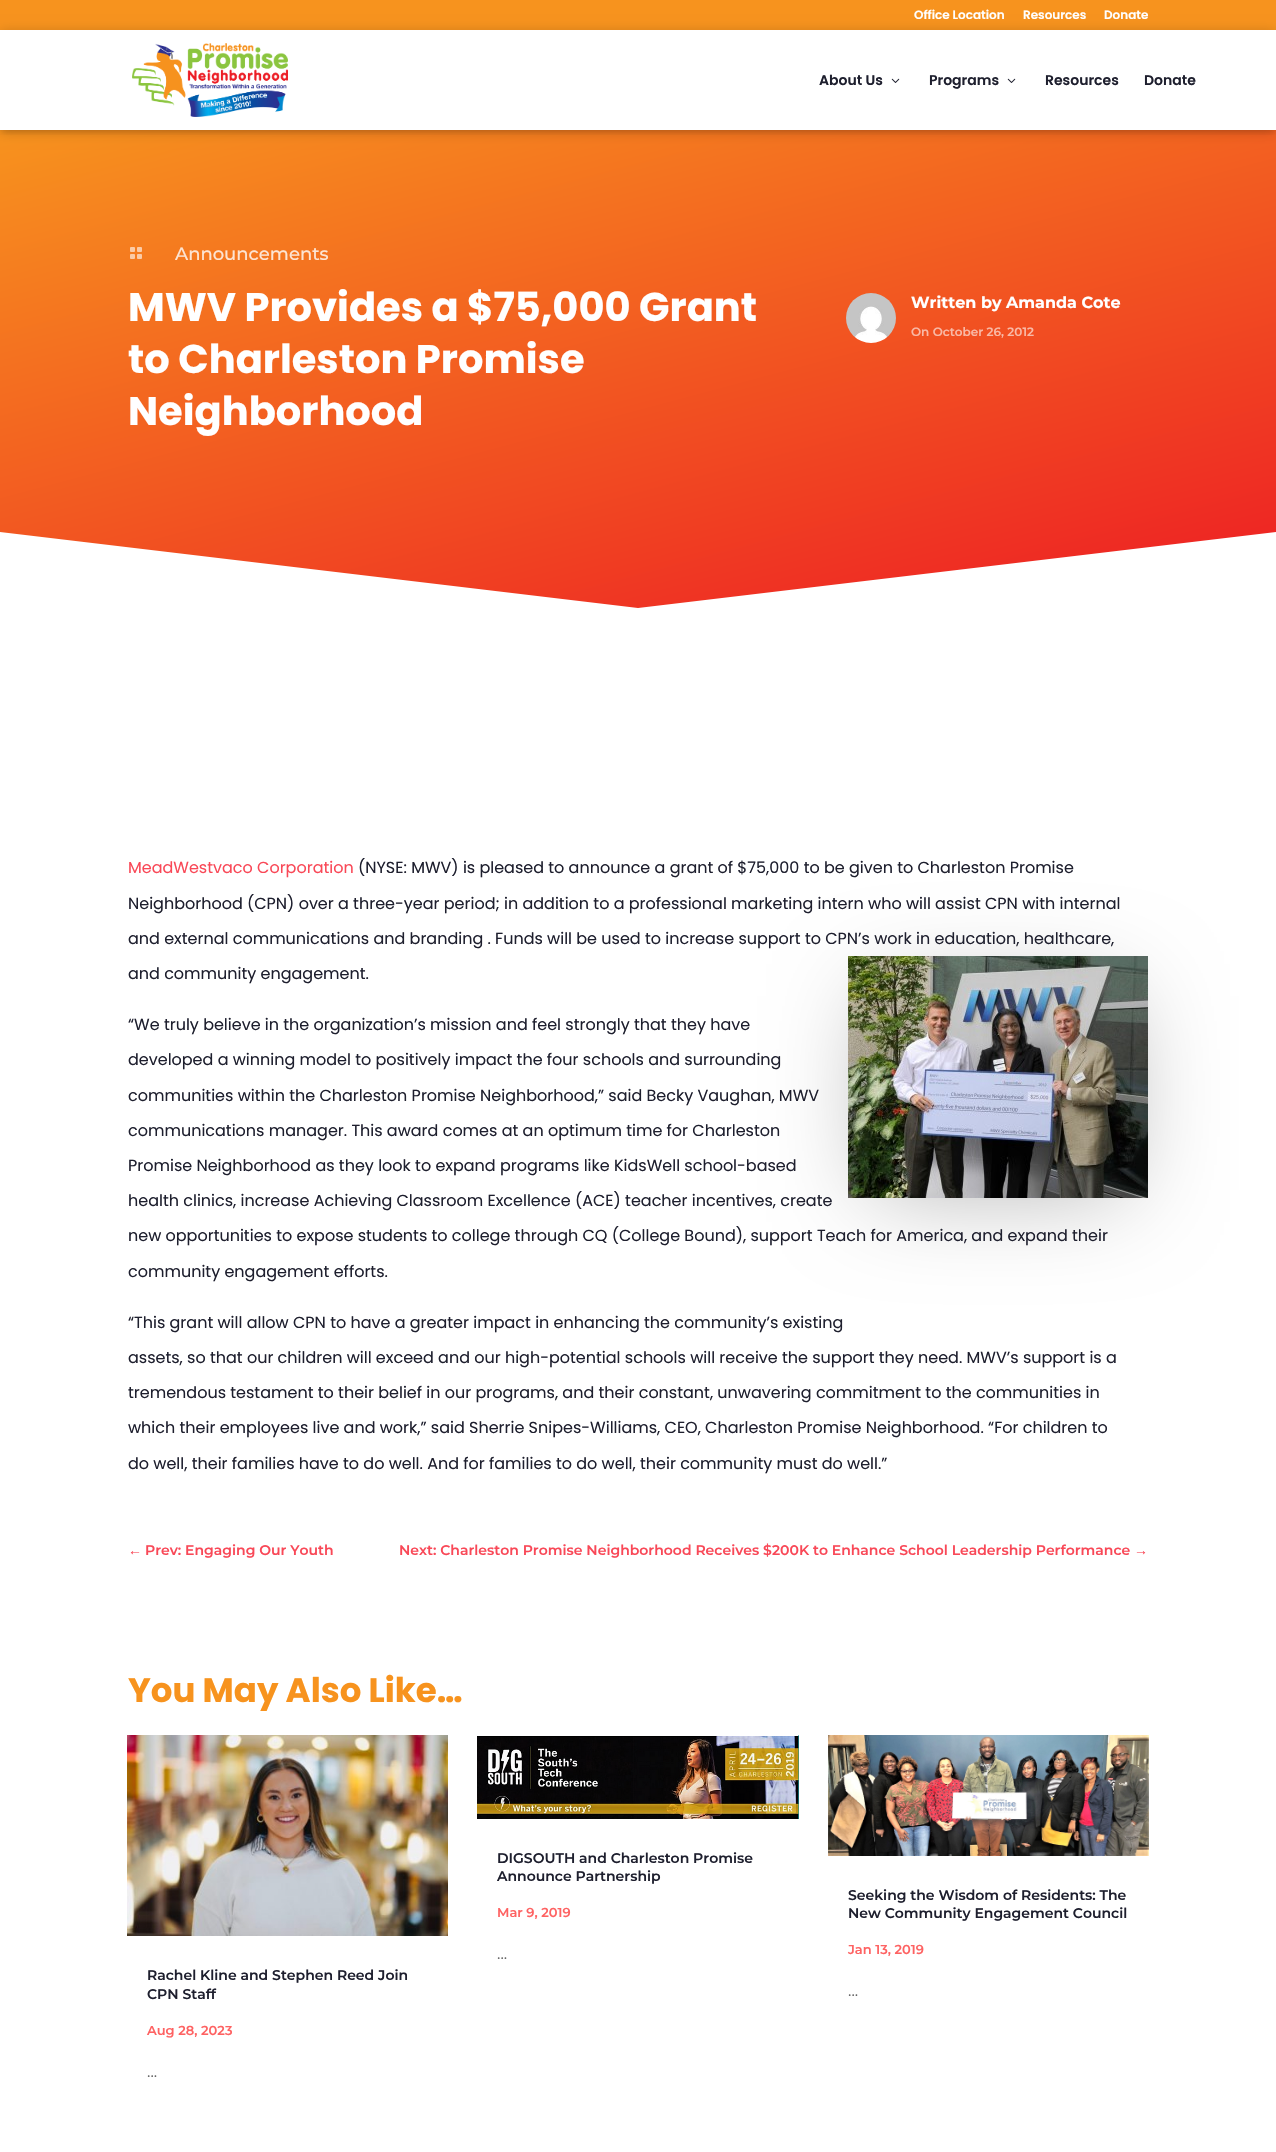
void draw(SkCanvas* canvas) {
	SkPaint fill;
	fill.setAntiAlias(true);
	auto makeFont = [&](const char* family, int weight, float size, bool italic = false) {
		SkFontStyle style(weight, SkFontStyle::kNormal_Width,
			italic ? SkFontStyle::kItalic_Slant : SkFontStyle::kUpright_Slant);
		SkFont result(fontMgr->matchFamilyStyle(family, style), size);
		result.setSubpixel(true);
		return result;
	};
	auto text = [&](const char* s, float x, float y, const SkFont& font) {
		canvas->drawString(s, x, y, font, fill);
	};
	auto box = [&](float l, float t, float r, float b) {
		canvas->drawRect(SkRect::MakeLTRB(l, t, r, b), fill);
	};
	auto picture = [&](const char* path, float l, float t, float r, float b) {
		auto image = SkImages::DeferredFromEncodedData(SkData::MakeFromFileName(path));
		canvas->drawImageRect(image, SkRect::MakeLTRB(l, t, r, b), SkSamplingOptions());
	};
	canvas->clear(0xFFFFFFFF);
	fill.setColor(0xFFF7931E);
	box(0, 0, 1276, 30);
	{
		const SkColor colors[] = {0xFFF7931E, 0xFFED1C24};
		const float stops[] = {0, 1};
		const SkPoint ends[] = {{536, -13}, {740, 751}};
		fill.setShader(SkGradientShader::MakeLinear(ends, colors, stops, 2, SkTileMode::kClamp));
		fill.setAlpha(255);
	}
	box(0, 130, 1276, 608);
	canvas->save();
	canvas->clipRect(SkRect::MakeLTRB(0, 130, 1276, 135));
	fill.setShader(nullptr);
	fill.setColor(0x1F000000);
	fill.setMaskFilter(SkMaskFilter::MakeBlur(kNormal_SkBlurStyle, 3));
	canvas->drawRect(SkRect::MakeLTRB(2, 36, 1274, 132), fill);
	fill.setMaskFilter(nullptr);
	canvas->restore();
	canvas->save();
	canvas->clipPath(SkPathBuilder(SkPathFillType::kEvenOdd).moveTo(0, 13).lineTo(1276, 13).lineTo(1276, 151).lineTo(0, 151).close().moveTo(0, 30).lineTo(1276, 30).lineTo(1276, 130).lineTo(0, 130).close().detach(), true);
	fill.setColor(0x33000000);
	fill.setMaskFilter(SkMaskFilter::MakeBlur(kNormal_SkBlurStyle, 6));
	canvas->drawRect(SkRect::MakeLTRB(0, 32, 1276, 132), fill);
	fill.setMaskFilter(nullptr);
	canvas->restore();
	picture("image0.png", 132, 43, 288, 117);
	picture("image1.png", 891, 78, 900, 83);
	picture("image1.png", 1007, 78, 1016, 83);
	picture("image2.png", 130, 247, 142, 259);
	picture("image3.png", 846, 293, 896, 343);
	fill.setColor(0xFFFFFFFF);
	canvas->drawPath(SkPathBuilder().moveTo(638, 608).lineTo(0, 532).lineTo(0, 609).lineTo(1276, 609).lineTo(1276, 532).close().detach(), fill);
	fill.setColor(0x4D000000);
	fill.setMaskFilter(SkMaskFilter::MakeBlur(kNormal_SkBlurStyle, 48));
	canvas->drawRect(SkRect::MakeLTRB(872, 996, 1124, 1190), fill);
	fill.setMaskFilter(nullptr);
	picture("image4.png", 848, 956, 1148, 1198);
	picture("image5.png", 477, 1735, 799, 1819);
	picture("image6.png", 828, 1735, 1149, 1856);
	picture("image7.png", 127, 1735, 448, 1936);
	auto font1 = makeFont("Poppins", 600, 12);
	fill.setColor(0xFFFFFFFF);
	text("Office Location", 914, 19, font1);
	text("Resources", 1023, 19, font1);
	text("Donate", 1104, 19, font1);
	auto font2 = makeFont("Poppins", 600, 14);
	fill.setColor(0xFF1E1F2E);
	text("About Us", 819, 85, font2);
	text("Programs", 929, 85, font2);
	text("Resources", 1045, 85, font2);
	text("Donate", 1144, 85, font2);
	auto font3 = makeFont("Montserrat", 500, 18);
	fill.setColor(0xFFFDE4D2);
	text("Announcements", 175, 260, font3);
	auto font4 = makeFont("Poppins", 700, 40);
	fill.setColor(0xFFFFFFFF);
	text("MWV Provides a $75,000 Grant", 128, 321, font4);
	text("to Charleston Promise", 128, 373, font4);
	text("Neighborhood", 128, 425, font4);
	auto font5 = makeFont("Montserrat", 700, 16);
	text("Written by Amanda Cote", 911, 308, font5);
	auto font6 = makeFont("Montserrat", 600, 12);
	fill.setColor(0xFFF9B9A6);
	text("On October 26, 2012", 911, 336, font6);
	auto font7 = makeFont("Poppins", 400, 16);
	fill.setColor(0xFFF94857);
	text("MeadWestvaco Corporation", 128, 873, font7);
	fill.setColor(0xFF1E1F2E);
	text("(NYSE: MWV) is pleased to announce a grant of $75,000 to be given to Charleston Promise", 358, 873, font7);
	text("Neighborhood (CPN) over a three-year period; in addition to a professional marketing intern who will assist CPN with internal", 128, 909, font7);
	text("and external communications and branding . Funds will be used to increase support to CPN’s work in education, healthcare,", 128, 944, font7);
	text("and community engagement.", 128, 979, font7);
	text("“We truly believe in the organization’s mission and feel strongly that they have", 128, 1030, font7);
	text("developed a winning model to positively impact the four schools and surrounding", 128, 1065, font7);
	text("communities within the Charleston Promise Neighborhood,” said Becky Vaughan, MWV", 128, 1101, font7);
	text("communications manager. This award comes at an optimum time for Charleston", 128, 1136, font7);
	text("Promise Neighborhood as they look to expand programs like KidsWell school-based", 128, 1171, font7);
	text("health clinics, increase Achieving Classroom Excellence (ACE) teacher incentives, create", 128, 1206, font7);
	text("new opportunities to expose students to college through CQ (College Bound), support Teach for America, and expand their", 128, 1241, font7);
	text("community engagement efforts.", 128, 1277, font7);
	text("“This grant will allow CPN to have a greater impact in enhancing the community’s existing", 128, 1328, font7);
	text("assets, so that our children will exceed and our high-potential schools will receive the support they need. MWV’s support is a", 128, 1363, font7);
	text("tremendous testament to their belief in our programs, and their constant, unwavering commitment to the communities in", 128, 1398, font7);
	text("which their employees live and work,” said Sherrie Snipes-Williams, CEO, Charleston Promise Neighborhood. “For children to", 128, 1433, font7);
	text("do well, their families have to do well. And for families to do well, their community must do well.”", 128, 1469, font7);
	auto font8 = makeFont("Liberation Sans", 700, 14);
	fill.setColor(0xFFF94857);
	text("←", 128, 1555, font8);
	auto font9 = makeFont("Montserrat", 600, 14);
	text("Prev: Engaging Our Youth", 145, 1555, font9);
	text("Next: Charleston Promise Neighborhood Receives $200K to Enhance School Leadership Performance", 399, 1555, font9);
	text("→", 1134, 1555, font8);
	auto font10 = makeFont("Poppins", 700, 34);
	fill.setColor(0xFFF7931E);
	text("You May Also Like…", 128, 1702, font10);
	fill.setColor(0xFF1E1F2E);
	text("DIGSOUTH and Charleston Promise", 497, 1863, font9);
	text("Announce Partnership", 497, 1881, font9);
	auto font11 = makeFont("Montserrat", 600, 13);
	fill.setColor(0xFFFE6262);
	text("Mar 9, 2019", 497, 1917, font11);
	auto font12 = makeFont("Montserrat", 400, 16);
	fill.setColor(0xFF666666);
	text("...", 497, 1959, font12);
	fill.setColor(0xFF1E1F2E);
	text("Seeking the Wisdom of Residents: The", 848, 1900, font9);
	text("New Community Engagement Council", 848, 1918, font9);
	fill.setColor(0xFFFE6262);
	text("Jan 13, 2019", 848, 1954, font11);
	fill.setColor(0xFF666666);
	text("...", 848, 1996, font12);
	fill.setColor(0xFF1E1F2E);
	text("Rachel Kline and Stephen Reed Join", 147, 1980, font9);
	text("CPN Staff", 147, 1999, font9);
	fill.setColor(0xFFFE6262);
	text("Aug 28, 2023", 147, 2035, font11);
	fill.setColor(0xFF666666);
	text("...", 147, 2077, font12);
}
